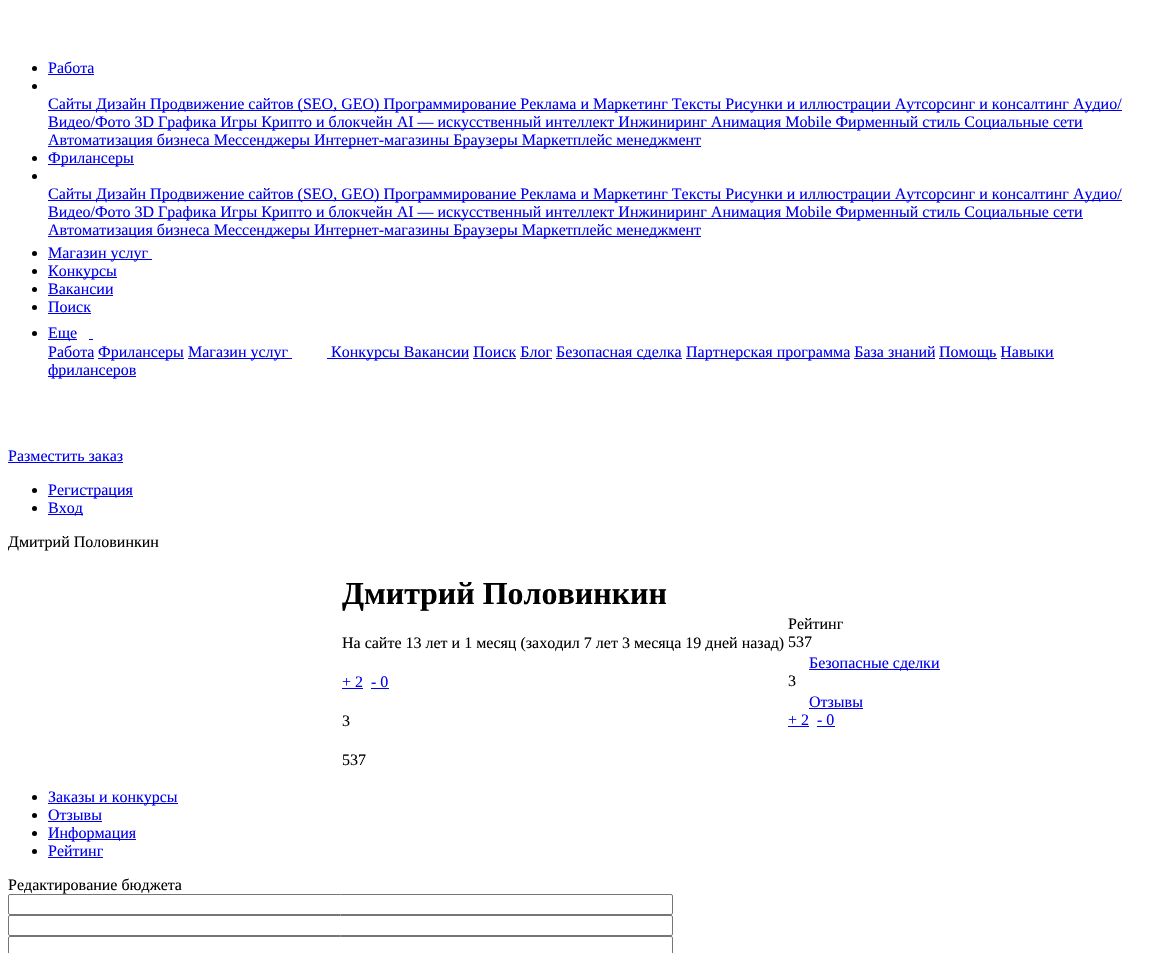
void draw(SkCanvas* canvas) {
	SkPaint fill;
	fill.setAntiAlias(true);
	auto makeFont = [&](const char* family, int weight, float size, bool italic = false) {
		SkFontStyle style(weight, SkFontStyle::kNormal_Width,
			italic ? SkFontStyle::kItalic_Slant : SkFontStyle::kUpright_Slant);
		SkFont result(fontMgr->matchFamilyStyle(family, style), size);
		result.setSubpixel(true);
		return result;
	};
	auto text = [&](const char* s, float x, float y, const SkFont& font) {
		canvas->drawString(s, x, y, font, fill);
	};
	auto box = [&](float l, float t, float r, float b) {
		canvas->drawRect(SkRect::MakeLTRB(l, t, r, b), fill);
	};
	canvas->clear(0xFFFFFFFF);
	fill.setColor(0xFF000000);
	canvas->drawCircle(34.5f, 68.5f, 2.5f, fill);
	fill.setColor(0xFF0000EE);
	box(48, 74, 94, 75);
	fill.setColor(0xFF000000);
	canvas->drawCircle(34.5f, 86.5f, 2.5f, fill);
	fill.setColor(0xFF0000EE);
	box(48, 110, 1122, 111);
	box(48, 128, 1083, 129);
	box(48, 146, 701, 147);
	fill.setColor(0xFF000000);
	canvas->drawCircle(34.5f, 158.5f, 2.5f, fill);
	fill.setColor(0xFF0000EE);
	box(48, 164, 134, 165);
	fill.setColor(0xFF000000);
	canvas->drawCircle(34.5f, 176.5f, 2.5f, fill);
	fill.setColor(0xFF0000EE);
	box(48, 200, 1122, 201);
	box(48, 218, 1083, 219);
	box(48, 236, 701, 237);
	fill.setColor(0xFF000000);
	canvas->drawCircle(34.5f, 253.5f, 2.5f, fill);
	fill.setColor(0xFF0000EE);
	box(48, 259, 152, 260);
	fill.setColor(0xFF000000);
	canvas->drawCircle(34.5f, 271.5f, 2.5f, fill);
	fill.setColor(0xFF0000EE);
	box(48, 277, 117, 278);
	fill.setColor(0xFF000000);
	canvas->drawCircle(34.5f, 289.5f, 2.5f, fill);
	fill.setColor(0xFF0000EE);
	box(48, 295, 113, 296);
	fill.setColor(0xFF000000);
	canvas->drawCircle(34.5f, 307.5f, 2.5f, fill);
	fill.setColor(0xFF0000EE);
	box(48, 313, 91, 314);
	fill.setColor(0xFF000000);
	canvas->drawCircle(34.5f, 333.5f, 2.5f, fill);
	fill.setColor(0xFF0000EE);
	box(48, 339, 77, 340);
	box(89, 339, 93, 340);
	box(48, 358, 94, 359);
	box(98, 358, 184, 359);
	box(188, 358, 292, 359);
	box(327, 358, 469, 359);
	box(556, 358, 682, 359);
	box(686, 358, 850, 359);
	box(939, 358, 997, 359);
	box(473, 358, 516, 359);
	box(520, 358, 552, 359);
	box(854, 358, 935, 359);
	box(1001, 358, 1054, 359);
	box(48, 376, 136, 377);
	box(8, 462, 123, 463);
	fill.setColor(0xFF000000);
	canvas->drawCircle(34.5f, 490.5f, 2.5f, fill);
	fill.setColor(0xFF0000EE);
	box(48, 496, 133, 497);
	fill.setColor(0xFF000000);
	canvas->drawCircle(34.5f, 508.5f, 2.5f, fill);
	fill.setColor(0xFF0000EE);
	box(48, 514, 83, 515);
	box(342, 688, 363, 689);
	box(371, 688, 389, 689);
	box(809, 669, 940, 670);
	box(809, 708, 863, 709);
	box(788, 726, 809, 727);
	box(817, 726, 835, 727);
	fill.setColor(0xFF000000);
	canvas->drawCircle(34.5f, 797.5f, 2.5f, fill);
	fill.setColor(0xFF0000EE);
	box(48, 803, 178, 804);
	fill.setColor(0xFF000000);
	canvas->drawCircle(34.5f, 815.5f, 2.5f, fill);
	fill.setColor(0xFF0000EE);
	box(48, 821, 102, 822);
	fill.setColor(0xFF000000);
	canvas->drawCircle(34.5f, 833.5f, 2.5f, fill);
	fill.setColor(0xFF0000EE);
	box(48, 839, 136, 840);
	fill.setColor(0xFF000000);
	canvas->drawCircle(34.5f, 851.5f, 2.5f, fill);
	fill.setColor(0xFF0000EE);
	box(48, 857, 103, 858);
	fill.setStyle(SkPaint::kStroke_Style);
	fill.setStrokeWidth(1);
	fill.setColor(0xFF767676);
	canvas->drawRoundRect(SkRect::MakeLTRB(8.5f, 894.5f, 672.5f, 914.5f), 1.5f, 1.5f, fill);
	canvas->drawRoundRect(SkRect::MakeLTRB(8.5f, 915.5f, 672.5f, 935.5f), 1.5f, 1.5f, fill);
	canvas->drawRoundRect(SkRect::MakeLTRB(8.5f, 936.5f, 672.5f, 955.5f), 1.5f, 1.5f, fill);
	auto font1 = makeFont("Liberation Serif", 400, 16);
	fill.setStyle(SkPaint::kFill_Style);
	fill.setColor(0xFF0000EE);
	text("Работа", 48, 73, font1);
	text("Сайты Дизайн Продвижение сайтов (SEO, GEO) Программирование Реклама и Маркетинг Тексты Рисунки и иллюстрации Аутсорсинг и консалтинг Аудио/", 48, 109, font1);
	text("Видео/Фото 3D Графика Игры Крипто и блокчейн AI — искусственный интеллект Инжиниринг Анимация Mobile Фирменный стиль Социальные сети", 48, 127, font1);
	text("Автоматизация бизнеса Мессенджеры Интернет-магазины Браузеры Маркетплейс менеджмент", 48, 145, font1);
	text("Фрилансеры", 48, 163, font1);
	text("Сайты Дизайн Продвижение сайтов (SEO, GEO) Программирование Реклама и Маркетинг Тексты Рисунки и иллюстрации Аутсорсинг и консалтинг Аудио/", 48, 199, font1);
	text("Видео/Фото 3D Графика Игры Крипто и блокчейн AI — искусственный интеллект Инжиниринг Анимация Mobile Фирменный стиль Социальные сети", 48, 217, font1);
	text("Автоматизация бизнеса Мессенджеры Интернет-магазины Браузеры Маркетплейс менеджмент", 48, 235, font1);
	text("Магазин услуг", 48, 258, font1);
	text("Конкурсы", 48, 276, font1);
	text("Вакансии", 48, 294, font1);
	text("Поиск", 48, 312, font1);
	text("Еще", 48, 338, font1);
	text("Работа", 48, 357, font1);
	text("Фрилансеры", 98, 357, font1);
	text("Магазин услуг", 188, 357, font1);
	text("Конкурсы Вакансии Поиск Блог", 331, 357, font1);
	text("Безопасная сделка", 556, 357, font1);
	text("Партнерская программа База знаний", 686, 357, font1);
	text("Помощь Навыки", 939, 357, font1);
	text("фрилансеров", 48, 375, font1);
	text("Разместить заказ", 8, 461, font1);
	text("Регистрация", 48, 495, font1);
	text("Вход", 48, 513, font1);
	fill.setColor(0xFF000000);
	text("Дмитрий Половинкин", 8, 547, font1);
	auto font2 = makeFont("Liberation Serif", 700, 32);
	text("Дмитрий Половинкин", 342, 604, font2);
	text("На сайте 13 лет и 1 месяц (заходил 7 лет 3 месяца 19 дней назад)", 342, 648, font1);
	fill.setColor(0xFF0000EE);
	text("+ 2", 342, 687, font1);
	text("- 0", 371, 687, font1);
	fill.setColor(0xFF000000);
	text("3", 342, 726, font1);
	text("537", 342, 765, font1);
	text("Рейтинг", 788, 629, font1);
	text("537", 788, 647, font1);
	fill.setColor(0xFF0000EE);
	text("Безопасные сделки", 809, 668, font1);
	fill.setColor(0xFF000000);
	text("3", 788, 686, font1);
	fill.setColor(0xFF0000EE);
	text("Отзывы", 809, 707, font1);
	text("+ 2", 788, 725, font1);
	text("- 0", 817, 725, font1);
	text("Заказы и конкурсы", 48, 802, font1);
	text("Отзывы", 48, 820, font1);
	text("Информация", 48, 838, font1);
	text("Рейтинг", 48, 856, font1);
	fill.setColor(0xFF000000);
	text("Редактирование бюджета", 8, 890, font1);
}
